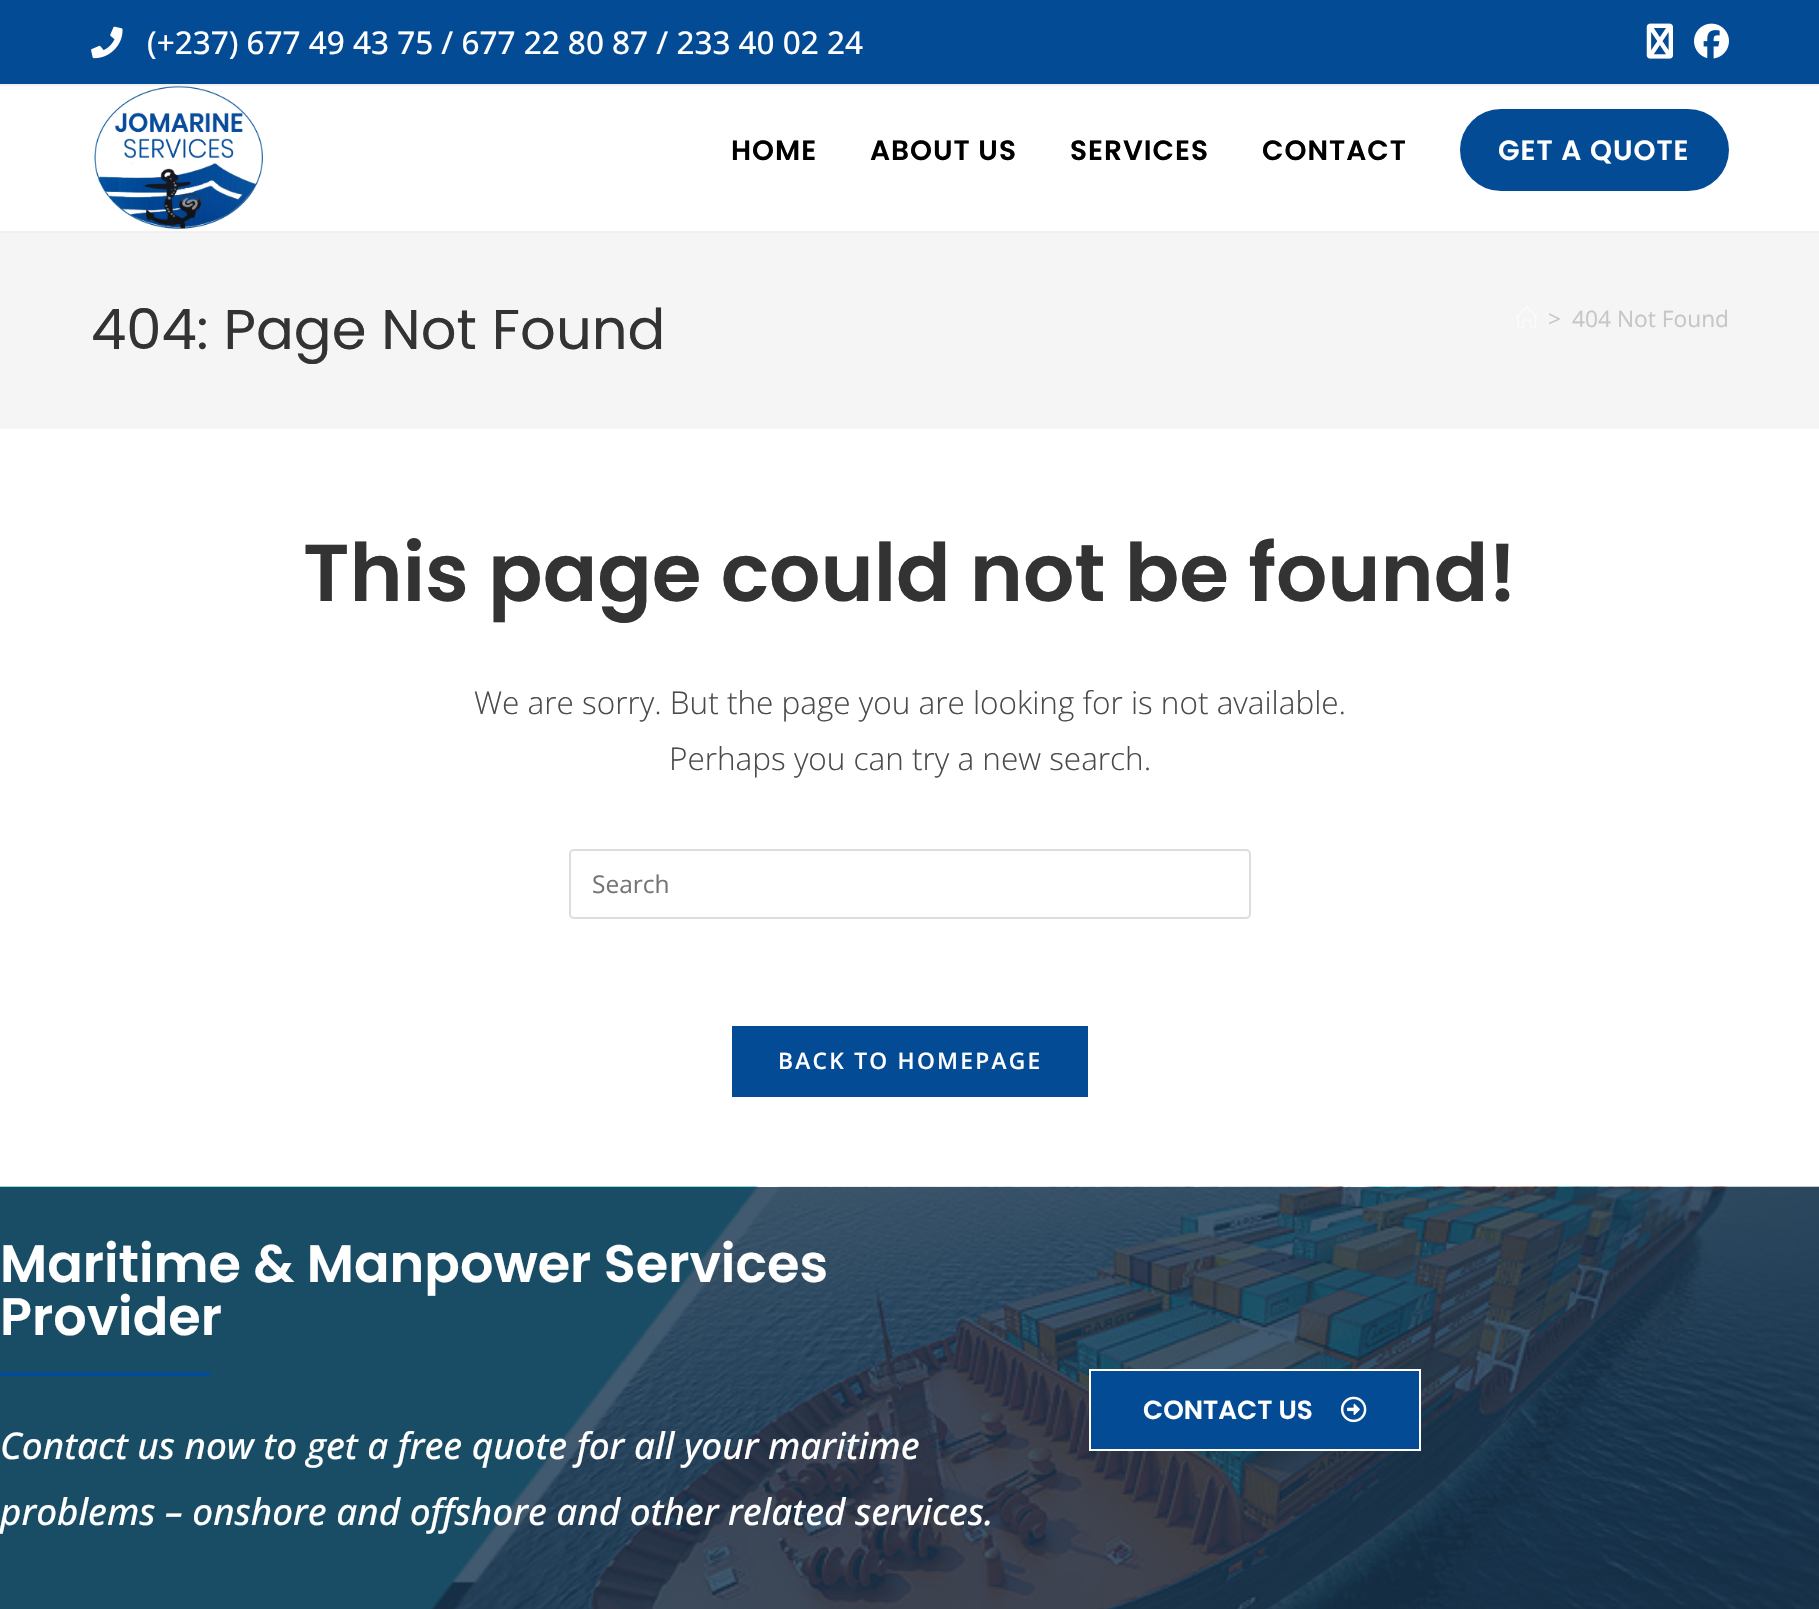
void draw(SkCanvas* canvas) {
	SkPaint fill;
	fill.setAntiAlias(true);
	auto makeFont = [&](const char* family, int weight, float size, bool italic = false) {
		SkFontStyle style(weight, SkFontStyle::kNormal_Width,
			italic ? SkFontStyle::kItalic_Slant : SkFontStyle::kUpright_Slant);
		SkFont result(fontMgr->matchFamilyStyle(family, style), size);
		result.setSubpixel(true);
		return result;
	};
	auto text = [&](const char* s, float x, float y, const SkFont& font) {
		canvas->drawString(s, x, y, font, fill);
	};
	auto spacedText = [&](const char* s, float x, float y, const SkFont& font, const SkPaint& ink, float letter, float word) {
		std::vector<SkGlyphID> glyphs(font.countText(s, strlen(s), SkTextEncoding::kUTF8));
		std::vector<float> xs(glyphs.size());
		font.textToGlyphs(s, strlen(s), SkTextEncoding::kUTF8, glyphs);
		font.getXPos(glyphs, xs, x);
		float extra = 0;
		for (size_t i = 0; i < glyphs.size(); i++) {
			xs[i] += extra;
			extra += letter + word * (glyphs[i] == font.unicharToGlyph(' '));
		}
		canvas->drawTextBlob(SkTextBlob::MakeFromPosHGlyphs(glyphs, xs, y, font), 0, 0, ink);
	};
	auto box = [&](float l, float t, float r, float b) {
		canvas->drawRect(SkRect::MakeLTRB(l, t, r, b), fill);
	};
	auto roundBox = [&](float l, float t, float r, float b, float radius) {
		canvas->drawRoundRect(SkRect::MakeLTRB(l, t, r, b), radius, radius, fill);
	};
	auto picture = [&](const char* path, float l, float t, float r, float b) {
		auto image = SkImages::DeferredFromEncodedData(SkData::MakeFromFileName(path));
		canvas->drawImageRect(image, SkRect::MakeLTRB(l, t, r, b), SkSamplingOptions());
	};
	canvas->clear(0xFFFFFFFF);
	fill.setColor(0xFF034B95);
	box(0, 0, 1819, 84);
	fill.setColor(0xFFF1F1F1);
	box(0, 84, 1819, 86);
	picture("image0.png", 91, 26, 123, 59);
	picture("image1.png", 1646, 23, 1673, 59);
	picture("image2.png", 1694, 23, 1729, 59);
	box(0, 231, 1819, 233);
	picture("image3.png", 94, 86, 263, 230);
	fill.setColor(0xFF034B95);
	roundBox(1460, 109, 1729, 191, 41);
	fill.setColor(0xFFF5F5F5);
	box(0, 233, 1819, 429);
	picture("image4.png", 1516, 306, 1538, 328);
	fill.setStyle(SkPaint::kStroke_Style);
	fill.setStrokeWidth(2);
	fill.setColor(0xFFDDDDDD);
	canvas->drawRoundRect(SkRect::MakeLTRB(570, 850, 1250, 918), 4, 4, fill);
	fill.setStyle(SkPaint::kFill_Style);
	fill.setColor(0xFF034B95);
	box(732, 1026, 1088, 1097);
	picture("image5.png", 0, 1186, 1819, 1609);
	box(0, 1372, 210, 1376);
	canvas->drawRect(SkRect::MakeLTRB(1090, 1370, 1420, 1450), fill);
	fill.setStyle(SkPaint::kStroke_Style);
	fill.setColor(0xFFFFFFFF);
	canvas->drawRect(SkRect::MakeLTRB(1090, 1370, 1420, 1450), fill);
	picture("image6.png", 1340, 1396, 1367, 1423);
	auto font1 = makeFont("Open Sans", 500, 31.5f);
	fill.setStyle(SkPaint::kFill_Style);
	text("(+237) 677 49 43 75 / 677 22 80 87 / 233 40 02 24", 147, 54, font1);
	auto font2 = makeFont("Poppins", 600, 28);
	fill.setColor(0xFF000000);
	spacedText("HOME", 731, 160, font2, fill, 1, 0);
	spacedText("ABOUT US", 870, 160, font2, fill, 1, 0);
	spacedText("SERVICES", 1070, 160, font2, fill, 1, 0);
	spacedText("CONTACT", 1262, 160, font2, fill, 1, 0);
	fill.setColor(0xFFFFFFFF);
	spacedText("GET A QUOTE", 1498, 160, font2, fill, 1, 0);
	auto font3 = makeFont("Poppins", 400, 56);
	fill.setColor(0xFF333333);
	text("404: Page Not Found", 91, 349, font3);
	auto font4 = makeFont("Open Sans", 400, 22.75f);
	fill.setColor(0xFFC6C6C6);
	text(">", 1548, 327, font4);
	text("404 Not Found", 1572, 327, font4);
	auto font5 = makeFont("Poppins", 600, 80.5f);
	fill.setColor(0xFF333333);
	text("This page could not be found!", 303, 601, font5);
	auto font6 = makeFont("Open Sans", 300, 31.5f);
	fill.setColor(0xFF4A4A4A);
	text("We are sorry. But the page you are looking for is not available.", 474, 714, font6);
	text("Perhaps you can try a new search.", 669, 770, font6);
	auto font7 = makeFont("Open Sans", 400, 24.5f);
	fill.setColor(0xFF757575);
	text("Search", 592, 893, font7);
	auto font8 = makeFont("Open Sans", 600, 22.75f);
	fill.setColor(0xFFFFFFFF);
	spacedText("BACK TO HOMEPAGE", 778, 1069, font8, fill, 2.25f, 0);
	auto font9 = makeFont("Poppins", 600, 52.5f);
	text("Maritime & Manpower Services", 0, 1282, font9);
	text("Provider", 0, 1335, font9);
	auto font10 = makeFont("Open Sans", 500, 36.75f, true);
	text("Contact us now to get a free quote for all your maritime", 0, 1459, font10);
	text("problems – onshore and offshore and other related services.", 0, 1525, font10);
	auto font11 = makeFont("Poppins", 600, 26.25f);
	text("CONTACT US", 1143, 1419, font11);
}
